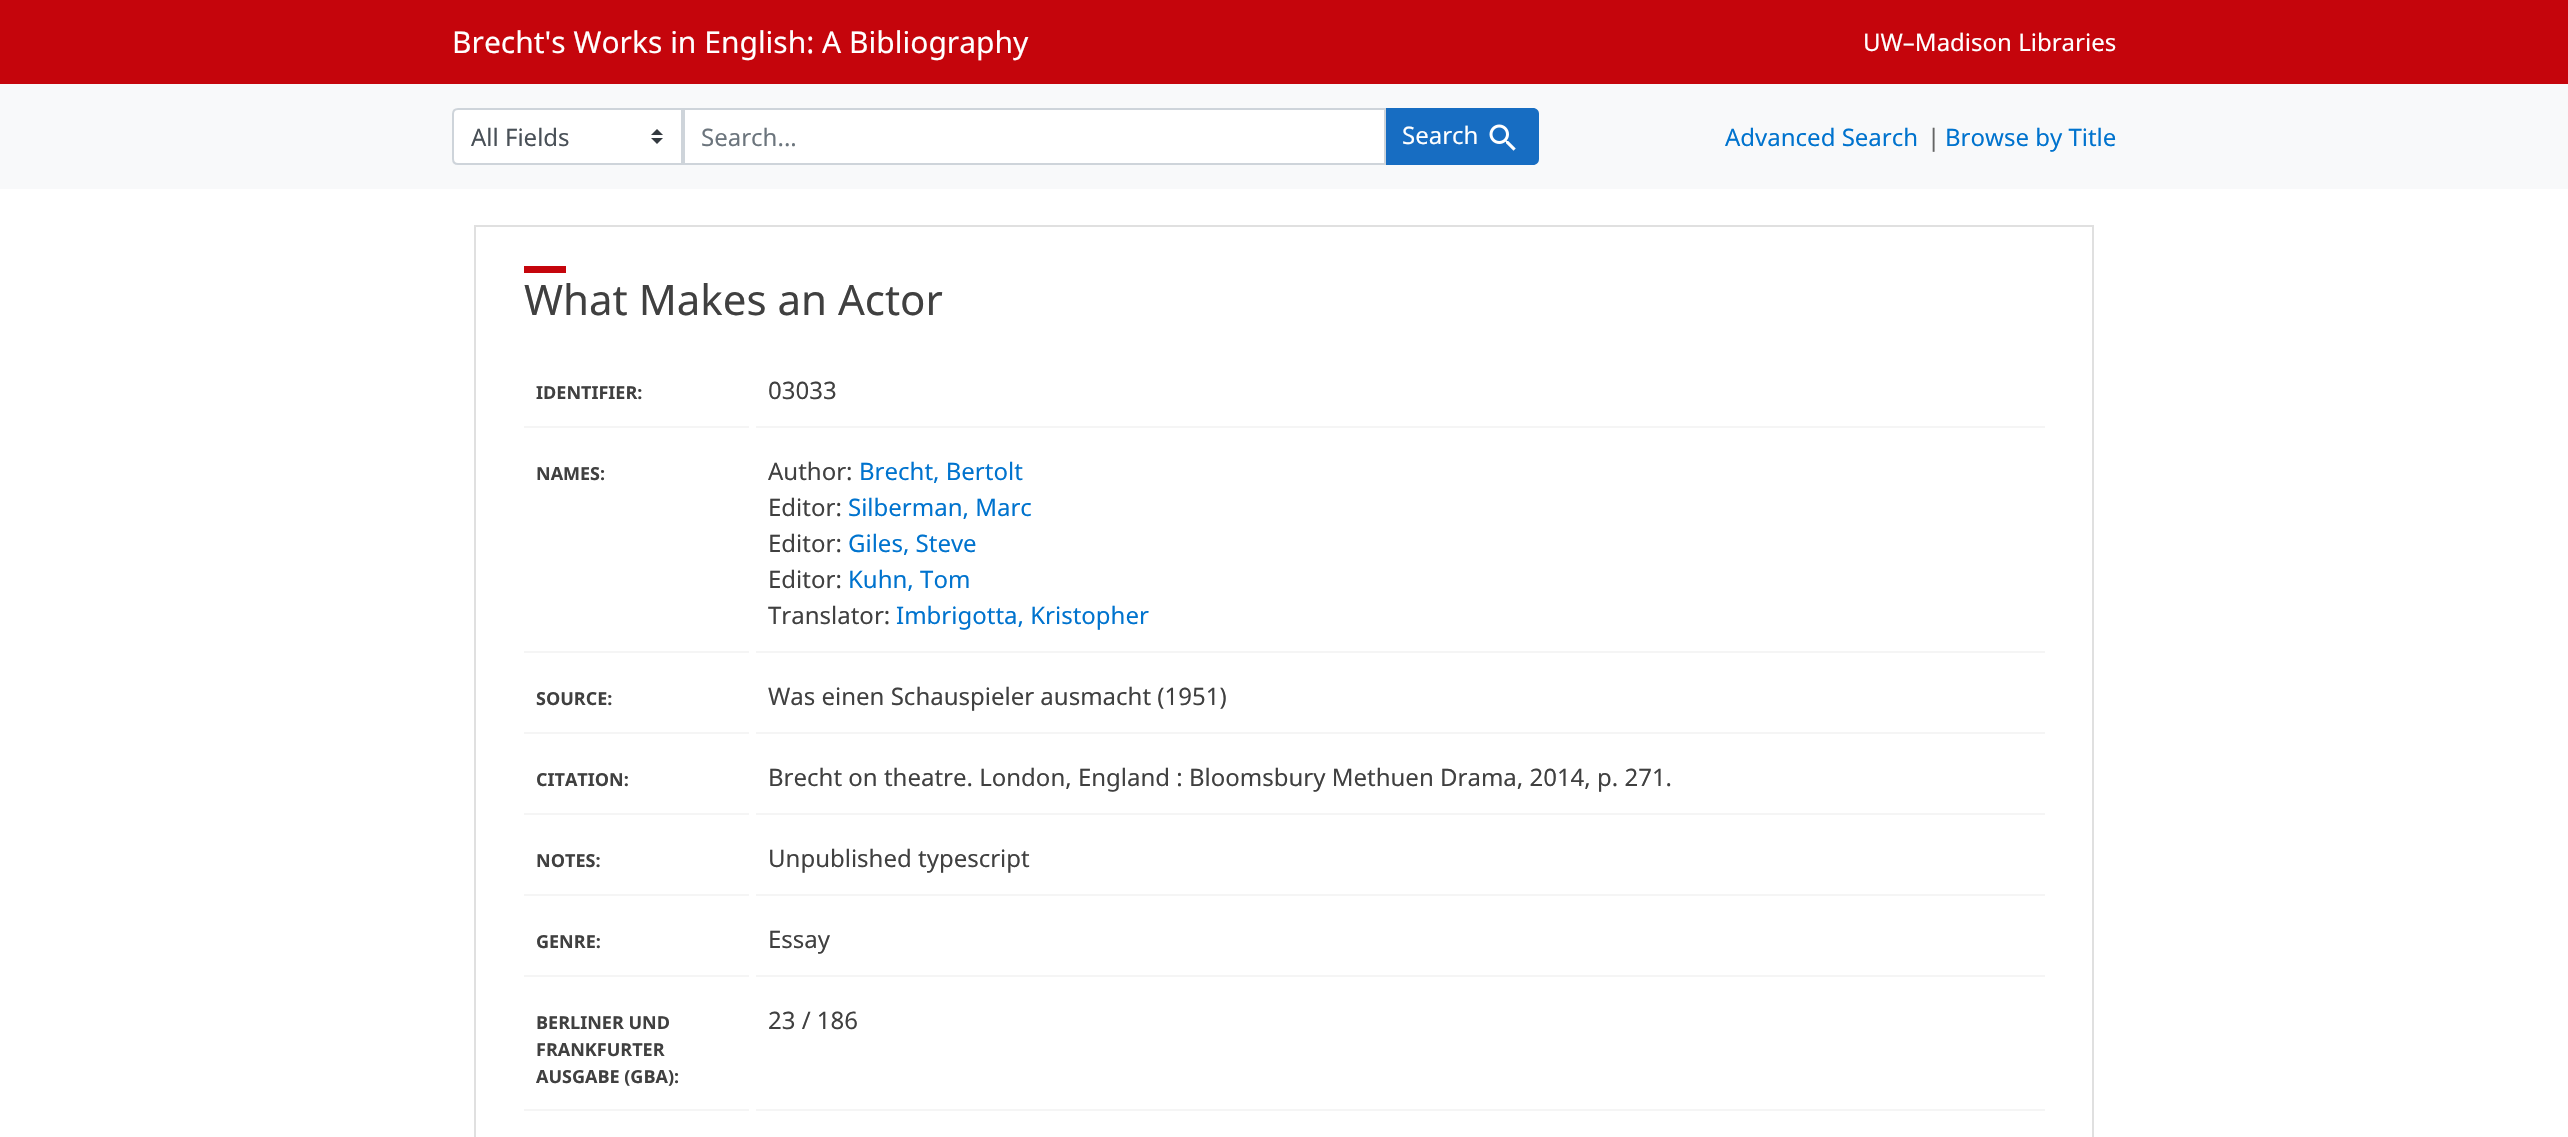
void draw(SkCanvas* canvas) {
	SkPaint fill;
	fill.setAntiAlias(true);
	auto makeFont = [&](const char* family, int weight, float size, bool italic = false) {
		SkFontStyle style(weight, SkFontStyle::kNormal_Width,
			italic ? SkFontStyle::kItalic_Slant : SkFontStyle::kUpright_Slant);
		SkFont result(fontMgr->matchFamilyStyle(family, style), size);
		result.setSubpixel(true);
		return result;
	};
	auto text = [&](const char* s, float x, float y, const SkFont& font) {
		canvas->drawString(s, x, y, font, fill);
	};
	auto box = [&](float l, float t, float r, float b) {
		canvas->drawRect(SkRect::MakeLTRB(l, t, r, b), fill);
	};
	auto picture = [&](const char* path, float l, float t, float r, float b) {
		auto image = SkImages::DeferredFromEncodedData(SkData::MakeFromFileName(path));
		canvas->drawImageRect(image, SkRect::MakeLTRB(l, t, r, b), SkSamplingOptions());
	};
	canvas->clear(0xFFFFFFFF);
	fill.setColor(0xFFC5050C);
	box(0, 0, 2568, 84);
	fill.setColor(0xFFF8F9FA);
	box(0, 84, 2568, 189);
	fill.setColor(0xFFFFFFFF);
	canvas->drawPath(SkPathBuilder().moveTo(458, 108).lineTo(683, 108).lineTo(683, 165).lineTo(458, 165).cubicTo(454.5f, 165, 452, 162.5f, 452, 159).lineTo(452, 114).cubicTo(452, 110.5f, 454.5f, 108, 458, 108).close().detach(), fill);
	picture("image0.png", 651, 129, 663, 144);
	fill.setStyle(SkPaint::kStroke_Style);
	fill.setStrokeWidth(2);
	fill.setColor(0xFFCED4DA);
	canvas->drawPath(SkPathBuilder().moveTo(458, 109).lineTo(682, 109).lineTo(682, 164).lineTo(458, 164).cubicTo(455, 164, 453, 162, 453, 159).lineTo(453, 114).cubicTo(453, 111, 455, 109, 458, 109).close().detach(), fill);
	fill.setStyle(SkPaint::kFill_Style);
	fill.setColor(0xFF176DC2);
	canvas->drawPath(SkPathBuilder().moveTo(1385, 108).lineTo(1533, 108).cubicTo(1536.5f, 108, 1539, 110.5f, 1539, 114).lineTo(1539, 159).cubicTo(1539, 162.5f, 1536.5f, 165, 1533, 165).lineTo(1385, 165).close().detach(), fill);
	fill.setColor(0xFFFFFFFF);
	canvas->drawRect(SkRect::MakeLTRB(684, 109, 1385, 164), fill);
	fill.setStyle(SkPaint::kStroke_Style);
	fill.setColor(0xFFCED4DA);
	canvas->drawRect(SkRect::MakeLTRB(684, 109, 1385, 164), fill);
	picture("image1.png", 1489, 124, 1516, 151);
	fill.setColor(0xFFE0E0E0);
	canvas->drawRect(SkRect::MakeLTRB(475, 226, 2093, 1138), fill);
	fill.setStyle(SkPaint::kFill_Style);
	fill.setColor(0xFFC5050C);
	box(524, 266, 566, 273);
	fill.setColor(0xFFF5F5F5);
	box(524, 426, 749, 428);
	box(756, 426, 2045, 428);
	box(524, 651, 749, 653);
	box(756, 651, 2045, 653);
	box(524, 732, 749, 734);
	box(756, 732, 2045, 734);
	box(524, 813, 749, 815);
	box(756, 813, 2045, 815);
	box(524, 894, 749, 896);
	box(756, 894, 2045, 896);
	box(524, 975, 749, 977);
	box(756, 975, 2045, 977);
	box(524, 1109, 749, 1111);
	box(756, 1109, 2045, 1111);
	auto font1 = makeFont("Noto Sans", 400, 30);
	fill.setColor(0xFFFFFFFF);
	text("Brecht's Works in English: A Bibliography", 452, 53, font1);
	auto font2 = makeFont("Noto Sans", 400, 24);
	text("UW–Madison Libraries", 1863, 51, font2);
	fill.setColor(0xFF495057);
	text("All Fields", 471, 146, font2);
	fill.setColor(0xFF6C757D);
	text("Search...", 701, 146, font2);
	fill.setColor(0xFFFFFFFF);
	text("Search", 1402, 144, font2);
	fill.setColor(0xFF0073CE);
	text("Advanced Search", 1725, 146, font2);
	fill.setColor(0xFF656565);
	text("|", 1927, 146, font2);
	fill.setColor(0xFF0073CE);
	text("Browse by Title", 1945, 146, font2);
	auto font3 = makeFont("Noto Sans", 400, 42);
	fill.setColor(0xFF404040);
	text("What Makes an Actor", 524, 315, font3);
	auto font4 = makeFont("Noto Sans", 700, 18);
	text("IDENTIFIER:", 536, 399, font4);
	text("03033", 768, 399, font2);
	text("NAMES:", 536, 480, font4);
	text("Author:", 768, 480, font2);
	fill.setColor(0xFF0073CE);
	text("Brecht, Bertolt", 859, 480, font2);
	fill.setColor(0xFF404040);
	text("Editor:", 768, 516, font2);
	fill.setColor(0xFF0073CE);
	text("Silberman, Marc", 848, 516, font2);
	fill.setColor(0xFF404040);
	text("Editor:", 768, 552, font2);
	fill.setColor(0xFF0073CE);
	text("Giles, Steve", 848, 552, font2);
	fill.setColor(0xFF404040);
	text("Editor:", 768, 588, font2);
	fill.setColor(0xFF0073CE);
	text("Kuhn, Tom", 848, 588, font2);
	fill.setColor(0xFF404040);
	text("Translator:", 768, 624, font2);
	fill.setColor(0xFF0073CE);
	text("Imbrigotta, Kristopher", 896, 624, font2);
	fill.setColor(0xFF404040);
	text("SOURCE:", 536, 705, font4);
	text("Was einen Schauspieler ausmacht (1951)", 768, 705, font2);
	text("CITATION:", 536, 786, font4);
	text("Brecht on theatre. London, England : Bloomsbury Methuen Drama, 2014, p. 271.", 768, 786, font2);
	text("NOTES:", 536, 867, font4);
	text("Unpublished typescript", 768, 867, font2);
	text("GENRE:", 536, 948, font4);
	text("Essay", 768, 948, font2);
	text("BERLINER UND", 536, 1029, font4);
	text("FRANKFURTER", 536, 1056, font4);
	text("AUSGABE (GBA):", 536, 1083, font4);
	text("23 / 186", 768, 1029, font2);
}
